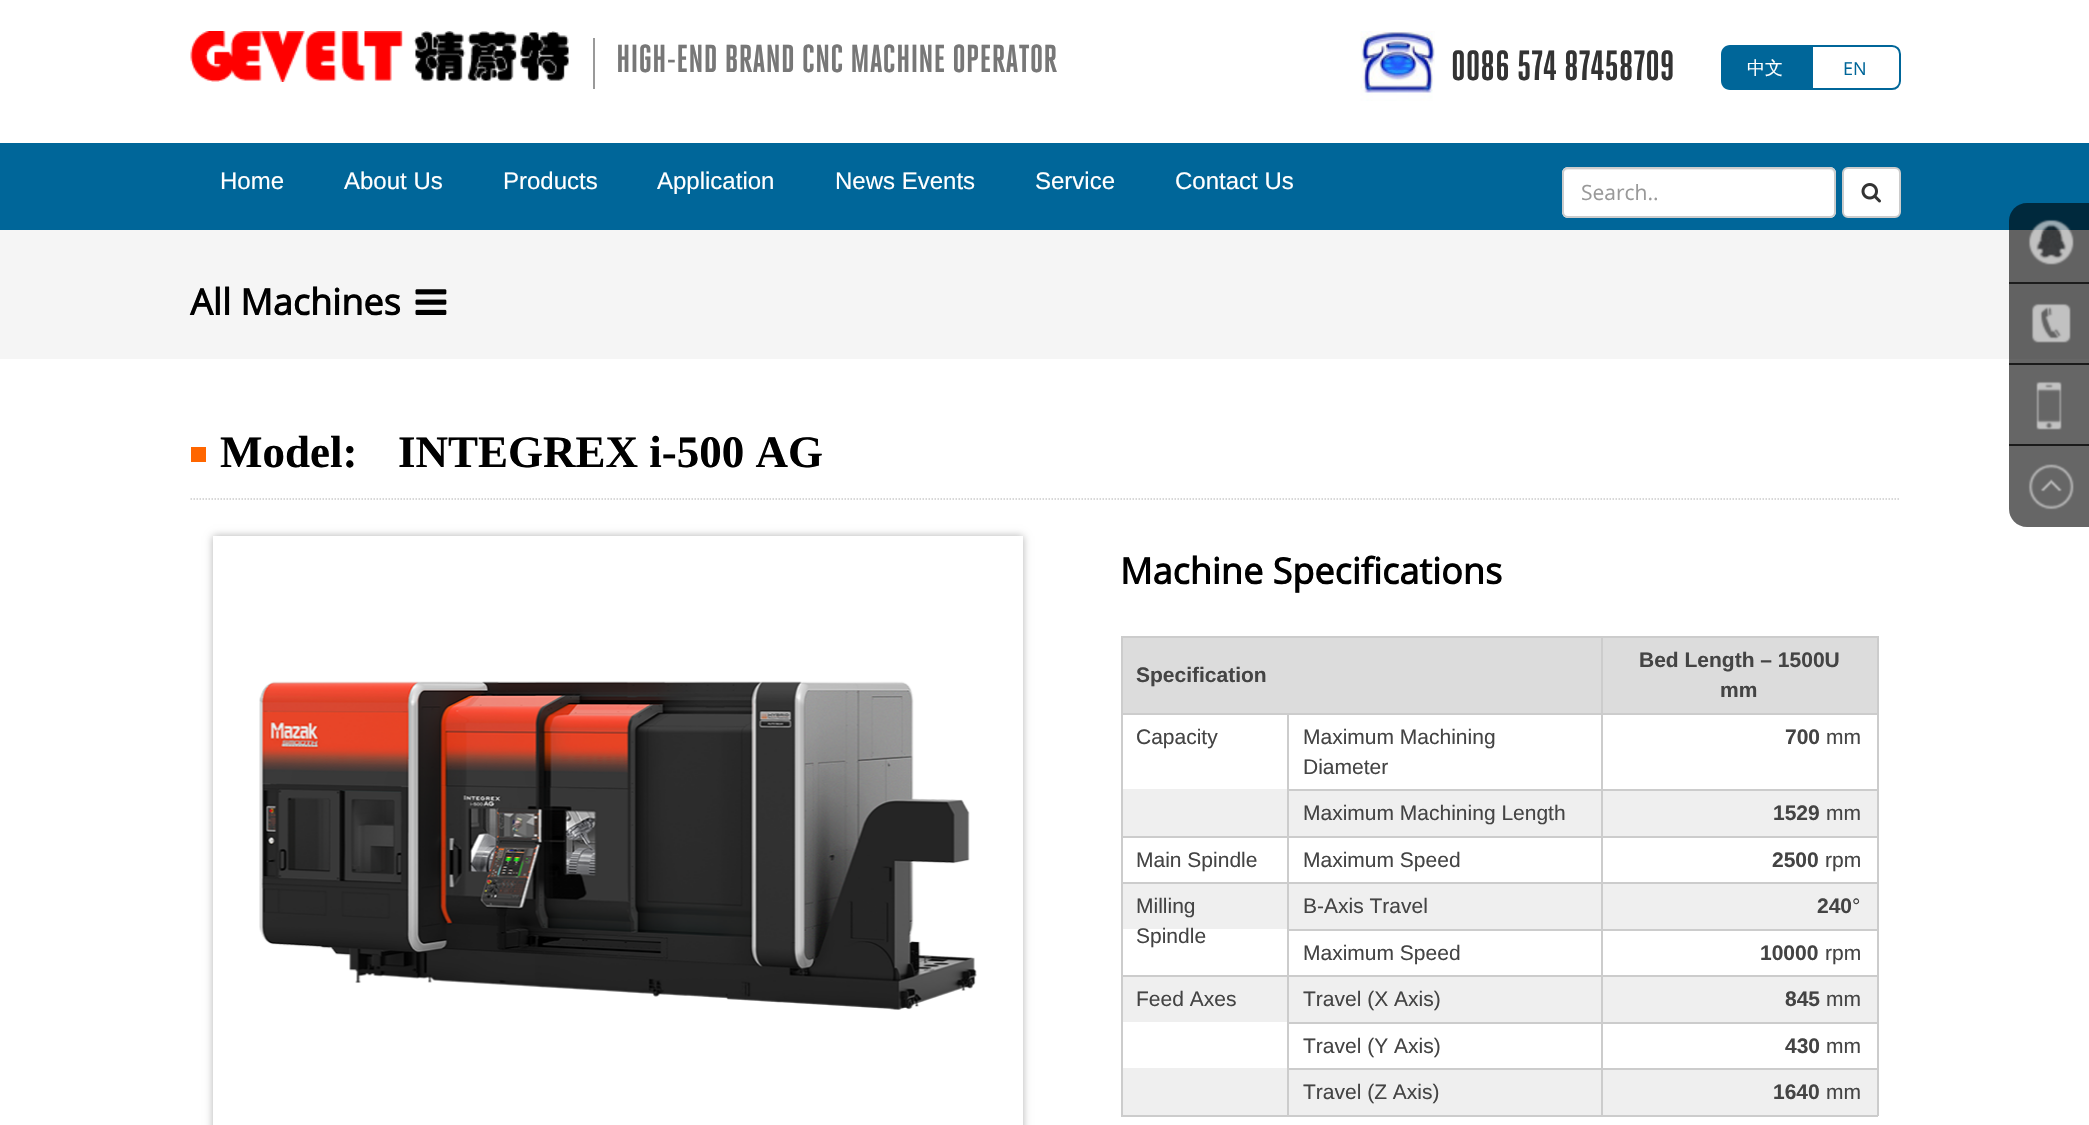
void draw(SkCanvas* canvas) {
	SkPaint fill;
	fill.setAntiAlias(true);
	auto makeFont = [&](const char* family, int weight, float size, bool italic = false) {
		SkFontStyle style(weight, SkFontStyle::kNormal_Width,
			italic ? SkFontStyle::kItalic_Slant : SkFontStyle::kUpright_Slant);
		SkFont result(fontMgr->matchFamilyStyle(family, style), size);
		result.setSubpixel(true);
		return result;
	};
	auto text = [&](const char* s, float x, float y, const SkFont& font) {
		canvas->drawString(s, x, y, font, fill);
	};
	auto box = [&](float l, float t, float r, float b) {
		canvas->drawRect(SkRect::MakeLTRB(l, t, r, b), fill);
	};
	auto roundBox = [&](float l, float t, float r, float b, float radius) {
		canvas->drawRoundRect(SkRect::MakeLTRB(l, t, r, b), radius, radius, fill);
	};
	auto picture = [&](const char* path, float l, float t, float r, float b) {
		auto image = SkImages::DeferredFromEncodedData(SkData::MakeFromFileName(path));
		canvas->drawImageRect(image, SkRect::MakeLTRB(l, t, r, b), SkSamplingOptions());
	};
	canvas->clear(0xFFFFFFFF);
	fill.setColor(0xFF666666);
	box(2009, 365, 2089, 444);
	box(2009, 359, 2089, 363);
	fill.setColor(0xFF006699);
	box(0, 143, 2089, 230);
	picture("image0.png", 190, 31, 569, 82);
	fill.setColor(0xFF999999);
	box(593, 38, 595, 89);
	picture("image1.png", 1360, 31, 1435, 101);
	fill.setColor(0xFF006699);
	canvas->drawPath(SkPathBuilder().moveTo(1730, 45).lineTo(1811, 45).lineTo(1811, 90).lineTo(1730, 90).cubicTo(1725, 90, 1721, 86, 1721, 81).lineTo(1721, 54).cubicTo(1721, 49, 1725, 45, 1730, 45).close().detach(), fill);
	fill.setStyle(SkPaint::kStroke_Style);
	fill.setStrokeWidth(2);
	canvas->drawPath(SkPathBuilder().moveTo(1812, 46).lineTo(1892, 46).cubicTo(1896.5f, 46, 1900, 49.5f, 1900, 54).lineTo(1900, 81).cubicTo(1900, 85.5f, 1896.5f, 89, 1892, 89).lineTo(1812, 89).close().detach(), fill);
	fill.setStyle(SkPaint::kFill_Style);
	fill.setColor(0xFFFFFFFF);
	roundBox(1562, 167, 1836, 218, 6);
	fill.setColor(0xFFECECEC);
	canvas->drawPath(SkPathBuilder().moveTo(1568, 170).lineTo(1830, 170).cubicTo(1832, 170, 1834, 172, 1834, 174).lineTo(1834, 214).cubicTo(1835, 213, 1835, 212, 1835, 211).lineTo(1835, 173).cubicTo(1835, 170, 1833, 168, 1830, 168).lineTo(1568, 168).cubicTo(1565, 168, 1563, 170, 1563, 173).lineTo(1563, 174).cubicTo(1563, 172, 1565, 170, 1568, 170).close().detach(), fill);
	fill.setStyle(SkPaint::kStroke_Style);
	fill.setColor(0xFFCCCCCC);
	canvas->drawRoundRect(SkRect::MakeLTRB(1563, 168, 1835, 217), 5, 5, fill);
	fill.setStyle(SkPaint::kFill_Style);
	fill.setColor(0xFFFFFFFF);
	canvas->drawRoundRect(SkRect::MakeLTRB(1843, 168, 1900, 217), 5, 5, fill);
	fill.setStyle(SkPaint::kStroke_Style);
	fill.setColor(0xFFCCCCCC);
	canvas->drawRoundRect(SkRect::MakeLTRB(1843, 168, 1900, 217), 5, 5, fill);
	picture("image2.png", 1861, 183, 1881, 203);
	fill.setStyle(SkPaint::kFill_Style);
	fill.setColor(0xFFF5F5F5);
	box(0, 230, 2089, 359);
	fill.setColor(0xFF626262);
	box(2009, 284, 2089, 359);
	picture("image3.png", 415, 289, 447, 315);
	fill.setColor(0xFF444444);
	box(2009, 282, 2089, 284);
	fill.setColor(0x99000000);
	canvas->drawPath(SkPathBuilder().moveTo(2027, 203).lineTo(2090, 203).lineTo(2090, 284).lineTo(2009, 284).lineTo(2009, 221).cubicTo(2009, 211, 2017, 203, 2027, 203).close().detach(), fill);
	picture("image4.png", 2028, 219, 2074, 265);
	fill.setColor(0xFF1B1B1B);
	box(2009, 363, 2089, 365);
	picture("image5.png", 2031, 303, 2071, 343);
	box(2009, 444, 2089, 446);
	picture("image6.png", 2036, 381, 2062, 430);
	fill.setColor(0xFF666666);
	canvas->drawPath(SkPathBuilder().moveTo(2009, 446).lineTo(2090, 446).lineTo(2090, 527).lineTo(2027, 527).cubicTo(2017, 527, 2009, 519, 2009, 509).close().detach(), fill);
	picture("image7.png", 2028, 464, 2074, 510);
	fill.setStyle(SkPaint::kStroke_Style);
	fill.setStrokeWidth(1.5f);
	fill.setColor(0xFFCCCCCC);
	fill.setPathEffect(SkDashPathEffect::Make({{1.5f, 1.5f}}, 0));
	canvas->drawPath(SkPathBuilder().moveTo(190.5f, 499).lineTo(1900.5f, 499).detach(), fill);
	fill.setPathEffect(nullptr);
	fill.setStyle(SkPaint::kFill_Style);
	fill.setColor(0xFFFF6600);
	box(191, 447, 206, 462);
	canvas->save();
	canvas->clipPath(SkPathBuilder(SkPathFillType::kEvenOdd).moveTo(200, 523).lineTo(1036, 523).lineTo(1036, 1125).lineTo(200, 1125).close().moveTo(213, 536).lineTo(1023, 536).lineTo(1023, 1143).lineTo(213, 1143).close().detach(), true);
	fill.setColor(0x4D000000);
	fill.setMaskFilter(SkMaskFilter::MakeBlur(kNormal_SkBlurStyle, 4));
	canvas->drawRect(SkRect::MakeLTRB(213, 536, 1023, 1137), fill);
	fill.setMaskFilter(nullptr);
	canvas->restore();
	picture("image8.png", 259, 681, 977, 1010);
	fill.setColor(0xFFCCCCCC);
	box(1121, 636, 1878, 638);
	box(1877, 636, 1879, 1116);
	box(1121, 1115, 1878, 1117);
	box(1121, 636, 1123, 1116);
	fill.setColor(0xFFDCDCDC);
	box(1123, 638, 1601, 713);
	box(1603, 638, 1877, 713);
	fill.setColor(0xFFCCCCCC);
	box(1601, 713, 1878, 715);
	fill.setColor(0xFFEFEFEF);
	box(1123, 789, 1877, 836);
	fill.setColor(0xFFCCCCCC);
	box(1601, 789, 1878, 791);
	box(1601, 836, 1878, 838);
	box(1601, 882, 1878, 884);
	fill.setColor(0xFFEFEFEF);
	box(1123, 884, 1877, 929);
	fill.setColor(0xFFCCCCCC);
	box(1601, 929, 1878, 931);
	box(1601, 975, 1878, 977);
	fill.setColor(0xFFEFEFEF);
	box(1123, 977, 1877, 1022);
	fill.setColor(0xFFCCCCCC);
	box(1601, 1022, 1878, 1024);
	fill.setColor(0xFFEFEFEF);
	box(1123, 1068, 1877, 1115);
	fill.setColor(0xFFCCCCCC);
	box(1601, 1068, 1878, 1070);
	box(1601, 1068, 1603, 1116);
	box(1287, 1068, 1602, 1070);
	box(1601, 1022, 1603, 1070);
	box(1287, 1022, 1602, 1024);
	box(1601, 975, 1603, 1023);
	box(1287, 975, 1602, 977);
	box(1601, 929, 1603, 977);
	box(1287, 929, 1602, 931);
	box(1601, 882, 1603, 930);
	box(1287, 882, 1602, 884);
	box(1601, 836, 1603, 884);
	box(1287, 836, 1602, 838);
	box(1601, 789, 1603, 837);
	box(1287, 789, 1602, 791);
	box(1601, 713, 1603, 791);
	box(1287, 713, 1602, 715);
	box(1601, 636, 1603, 714);
	box(1287, 1068, 1289, 1116);
	box(1287, 1022, 1289, 1070);
	box(1287, 975, 1289, 1023);
	box(1121, 975, 1289, 977);
	box(1287, 929, 1289, 977);
	box(1287, 882, 1289, 930);
	box(1121, 882, 1289, 884);
	box(1287, 836, 1289, 884);
	box(1121, 836, 1289, 838);
	box(1287, 789, 1289, 837);
	box(1287, 713, 1289, 791);
	box(1121, 713, 1289, 715);
	auto font1 = makeFont("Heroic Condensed", 700, 39);
	fill.setColor(0xFF777777);
	text("HIGH-END BRAND CNC MACHINE OPERATOR", 616, 72, font1);
	auto font2 = makeFont("Heroic Condensed", 700, 42);
	fill.setColor(0xFF333333);
	text("0086 574 87458709", 1451, 80, font2);
	auto font3 = makeFont("WenQuanYi Zen Hei", 500, 18);
	fill.setColor(0xFFFFFFFF);
	text("中文", 1747, 74, font3);
	auto font4 = makeFont("Open Sans", 400, 18);
	fill.setColor(0xFF006699);
	text("EN", 1843, 75, font4);
	auto font5 = makeFont("Liberation Sans", 400, 24);
	fill.setColor(0xFFFFFFFF);
	text("Home", 220, 189, font5);
	text("About Us", 344, 189, font5);
	text("Products", 503, 189, font5);
	text("Application", 657, 189, font5);
	text("News Events", 835, 189, font5);
	text("Service", 1035, 189, font5);
	text("Contact Us", 1175, 189, font5);
	auto font6 = makeFont("Open Sans", 400, 21);
	fill.setColor(0xFF999999);
	text("Search..", 1581, 200, font6);
	auto font7 = makeFont("Open Sans", 700, 36);
	fill.setColor(0xFF000000);
	text("All Machines", 190, 315, font7);
	auto font8 = makeFont("Liberation Serif", 700, 45);
	text("Model:", 220, 467, font8);
	text("INTEGREX i-500 AG", 398, 467, font8);
	text("Machine Specifications", 1120, 584, font7);
	auto font9 = makeFont("Liberation Sans", 700, 21);
	fill.setColor(0xFF444444);
	text("Specification", 1136, 682, font9);
	text("Bed Length – 1500U", 1639, 667, font9);
	text("mm", 1720, 697, font9);
	auto font10 = makeFont("Liberation Sans", 400, 21);
	text("Capacity", 1136, 744, font10);
	text("Maximum Machining", 1303, 744, font10);
	text("Diameter", 1303, 774, font10);
	text("700", 1785, 744, font9);
	text("mm", 1826, 744, font10);
	text("Maximum Machining Length", 1303, 820, font10);
	text("1529", 1773, 820, font9);
	text("mm", 1826, 820, font10);
	text("Main Spindle", 1136, 867, font10);
	text("Maximum Speed", 1303, 867, font10);
	text("2500", 1772, 867, font9);
	text("rpm", 1825, 867, font10);
	text("Milling", 1136, 913, font10);
	text("Spindle", 1136, 943, font10);
	text("B-Axis Travel", 1303, 913, font10);
	text("240", 1817, 913, font9);
	text("°", 1852, 913, font10);
	text("Maximum Speed", 1303, 960, font10);
	text("10000", 1760, 960, font9);
	text("rpm", 1825, 960, font10);
	text("Feed Axes", 1136, 1006, font10);
	text("Travel (X Axis)", 1303, 1006, font10);
	text("845", 1785, 1006, font9);
	text("mm", 1826, 1006, font10);
	text("Travel (Y Axis)", 1303, 1053, font10);
	text("430", 1785, 1053, font9);
	text("mm", 1826, 1053, font10);
	text("Travel (Z Axis)", 1303, 1099, font10);
	text("1640", 1773, 1099, font9);
	text("mm", 1826, 1099, font10);
}
